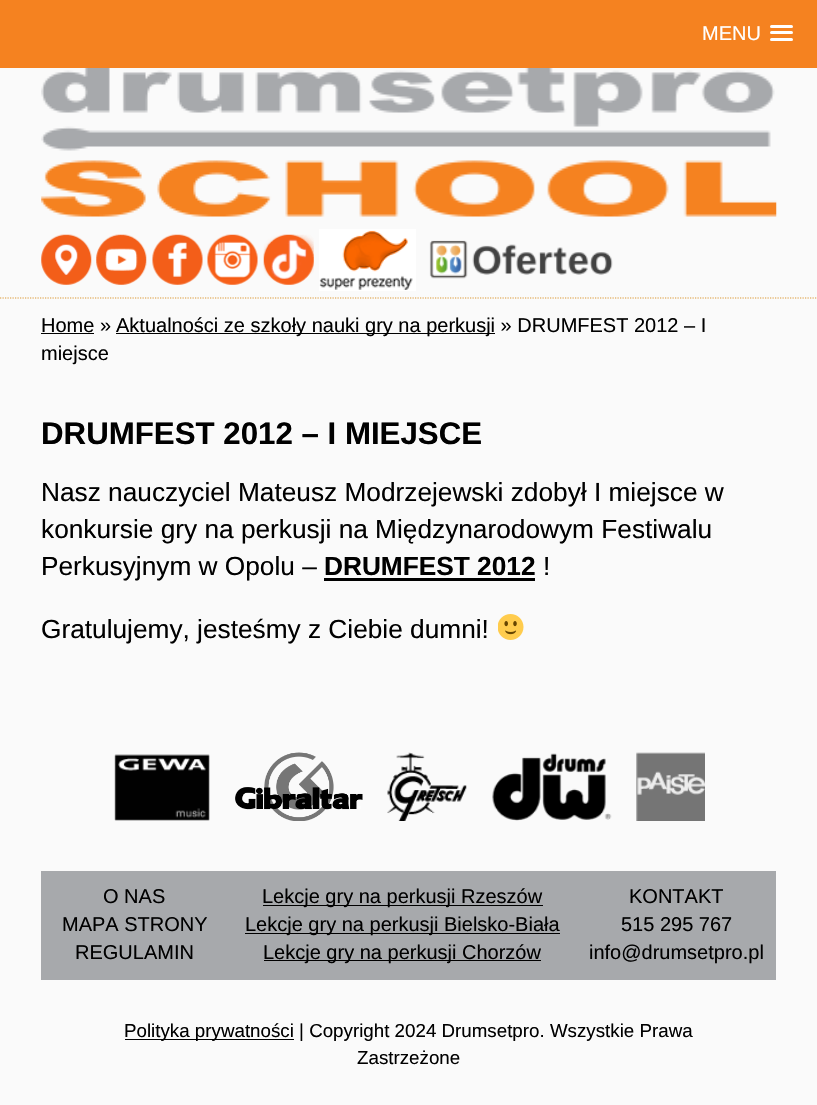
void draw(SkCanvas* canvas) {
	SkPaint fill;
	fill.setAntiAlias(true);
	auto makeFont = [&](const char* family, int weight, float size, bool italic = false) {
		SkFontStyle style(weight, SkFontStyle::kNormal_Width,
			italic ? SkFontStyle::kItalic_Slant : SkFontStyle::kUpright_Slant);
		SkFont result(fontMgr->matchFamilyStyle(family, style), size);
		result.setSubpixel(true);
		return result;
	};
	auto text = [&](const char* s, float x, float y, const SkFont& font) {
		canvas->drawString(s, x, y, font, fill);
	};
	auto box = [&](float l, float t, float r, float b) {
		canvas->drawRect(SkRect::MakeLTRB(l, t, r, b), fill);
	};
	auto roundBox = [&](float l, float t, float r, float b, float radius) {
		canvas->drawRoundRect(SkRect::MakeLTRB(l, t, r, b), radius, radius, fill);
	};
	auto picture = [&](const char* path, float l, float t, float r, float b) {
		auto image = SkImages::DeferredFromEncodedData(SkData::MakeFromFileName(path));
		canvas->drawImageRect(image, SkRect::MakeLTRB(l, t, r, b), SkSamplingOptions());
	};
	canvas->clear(0xFFFAFAFA);
	fill.setStyle(SkPaint::kStroke_Style);
	fill.setStrokeWidth(1.2f);
	fill.setColor(0xFFDD9933);
	fill.setPathEffect(SkDashPathEffect::Make({{1.25f, 1.25f}}, 0));
	canvas->drawPath(SkPathBuilder().moveTo(0, 298).lineTo(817.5f, 298).detach(), fill);
	fill.setPathEffect(nullptr);
	fill.setStyle(SkPaint::kFill_Style);
	fill.setColor(0xFFF58220);
	box(0, 0, 817, 68);
	fill.setColor(0xFFFFFFFF);
	roundBox(770, 25, 793, 28, 1.5f);
	roundBox(770, 31, 793, 34, 1.5f);
	roundBox(770, 38, 793, 41, 1.5f);
	picture("image0.png", 41, 68, 777, 217);
	picture("image1.png", 41, 234, 92, 285);
	picture("image2.png", 96, 234, 147, 285);
	picture("image3.png", 152, 234, 203, 285);
	picture("image4.png", 207, 234, 258, 285);
	picture("image5.png", 263, 234, 314, 285);
	picture("image6.png", 319, 229, 416, 291);
	picture("image7.png", 429, 240, 613, 279);
	fill.setColor(0xFF000000);
	box(41, 333, 94, 334);
	box(116, 333, 495, 334);
	box(324, 578, 535, 581);
	picture("image8.png", 498, 614, 524, 640);
	picture("image9.png", 114, 754, 210, 821);
	picture("image10.png", 235, 752, 363, 821);
	picture("image11.png", 387, 752, 467, 821);
	picture("image12.png", 492, 753, 612, 821);
	picture("image13.png", 636, 752, 705, 821);
	fill.setColor(0xFFA7A9AC);
	box(41, 871, 776, 980);
	fill.setColor(0xFF000000);
	box(263, 905, 543, 906);
	box(245, 933, 560, 934);
	box(264, 960, 541, 961);
	box(125, 1039, 294, 1040);
	auto font1 = makeFont("Liberation Sans", 400, 20);
	fill.setColor(0xFFFFFFFF);
	text("MENU", 702, 40, font1);
	fill.setColor(0xFF000000);
	text("Home »", 41, 332, font1);
	text("Aktualności ze szkoły nauki gry na perkusji » DRUMFEST 2012 – I", 116, 332, font1);
	text("miejsce", 41, 360, font1);
	auto font2 = makeFont("Liberation Sans", 700, 31.25f);
	text("DRUMFEST 2012 – I MIEJSCE", 41, 444, font2);
	auto font3 = makeFont("Liberation Sans", 400, 26.25f);
	text("Nasz nauczyciel Mateusz Modrzejewski zdobył I miejsce w", 41, 501, font3);
	text("konkursie gry na perkusji na Międzynarodowym Festiwalu", 41, 538, font3);
	text("Perkusyjnym w Opolu –", 41, 575, font3);
	auto font4 = makeFont("Liberation Sans", 700, 26.25f);
	text("DRUMFEST 2012", 324, 575, font4);
	text("!", 543, 575, font3);
	text("Gratulujemy, jesteśmy z Ciebie dumni!", 41, 638, font3);
	text("O NAS", 103, 903, font1);
	text("MAPA STRONY", 62, 931, font1);
	text("REGULAMIN", 75, 959, font1);
	text("Lekcje gry na perkusji Rzeszów", 262, 903, font1);
	text("Lekcje gry na perkusji Bielsko-Biała", 245, 931, font1);
	text("Lekcje gry na perkusji Chorzów", 263, 959, font1);
	text("KONTAKT", 629, 903, font1);
	text("515 295 767", 621, 931, font1);
	text("info@drumsetpro.pl", 589, 959, font1);
	auto font5 = makeFont("Liberation Sans", 400, 18.75f);
	text("Polityka prywatności | Copyright 2024 Drumsetpro. Wszystkie Prawa", 124, 1037, font5);
	text("Zastrzeżone", 357, 1064, font5);
}
